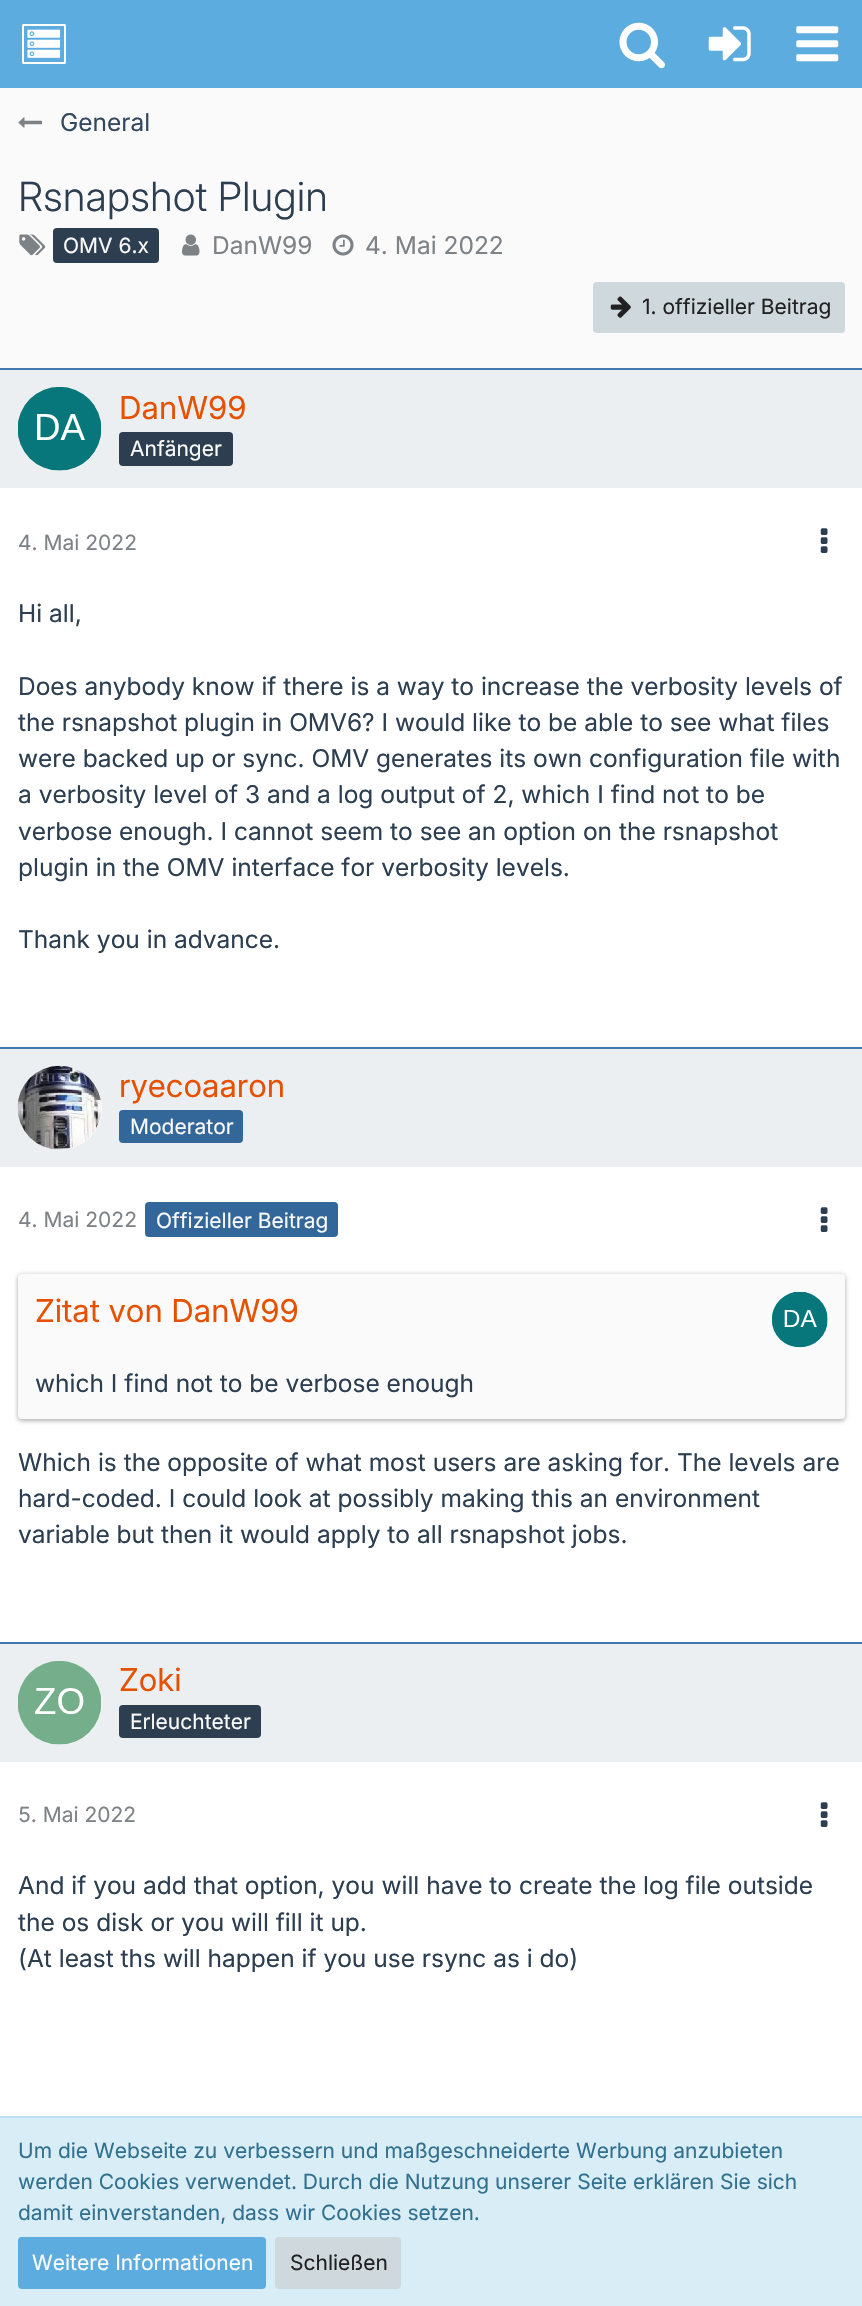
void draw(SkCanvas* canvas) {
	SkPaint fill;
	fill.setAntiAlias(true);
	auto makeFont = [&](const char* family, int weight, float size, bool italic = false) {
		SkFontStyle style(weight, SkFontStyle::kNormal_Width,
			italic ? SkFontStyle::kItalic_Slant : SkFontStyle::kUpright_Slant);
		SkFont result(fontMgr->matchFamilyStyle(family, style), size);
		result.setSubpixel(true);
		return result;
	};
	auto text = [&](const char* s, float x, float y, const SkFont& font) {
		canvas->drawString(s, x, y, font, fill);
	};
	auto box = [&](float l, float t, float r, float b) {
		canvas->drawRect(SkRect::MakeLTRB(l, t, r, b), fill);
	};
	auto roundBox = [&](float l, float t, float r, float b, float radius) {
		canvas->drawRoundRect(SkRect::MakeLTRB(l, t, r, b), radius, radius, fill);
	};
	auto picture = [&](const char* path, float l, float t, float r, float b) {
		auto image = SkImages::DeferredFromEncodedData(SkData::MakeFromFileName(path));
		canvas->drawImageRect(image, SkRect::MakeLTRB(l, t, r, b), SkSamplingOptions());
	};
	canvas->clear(0xFFFAFAFA);
	fill.setColor(0xFF5DACDF);
	box(0, 0, 862, 88);
	picture("image0.png", 22, 24, 66, 64);
	picture("image1.png", 619, 22, 665, 69);
	picture("image2.png", 708, 26, 751, 62);
	picture("image3.png", 796, 26, 839, 62);
	picture("image4.png", 18, 117, 42, 128);
	picture("image5.png", 19, 234, 46, 256);
	fill.setColor(0xFF2C3E50);
	roundBox(53, 228, 159, 263, 4);
	picture("image6.png", 182, 234, 200, 256);
	picture("image7.png", 332, 234, 354, 256);
	fill.setColor(0xFFCFD8DC);
	roundBox(593, 282, 845, 333, 4);
	picture("image8.png", 610, 296, 631, 318);
	fill.setColor(0xFFFFFFFF);
	box(0, 488, 862, 2116);
	fill.setColor(0xFFECEFF1);
	box(0, 370, 862, 488);
	fill.setColor(0xFF4179AD);
	box(0, 368, 862, 370);
	fill.setColor(0xFFFFFFFF);
	canvas->drawCircle(60, 429, 42, fill);
	picture("image9.png", 18, 387, 102, 471);
	fill.setColor(0xFF2C3E50);
	roundBox(119, 432, 233, 466, 4);
	picture("image10.png", 820, 528, 828, 553);
	fill.setColor(0xFFECEFF1);
	box(0, 1049, 862, 1167);
	fill.setColor(0xFF4179AD);
	box(0, 1047, 862, 1049);
	fill.setColor(0xFFFFFFFF);
	canvas->drawCircle(60, 1108, 42, fill);
	picture("image11.png", 17, 1065, 101, 1150);
	fill.setColor(0xFF336699);
	roundBox(119, 1110, 243, 1143, 4);
	roundBox(145, 1202, 338, 1237, 4);
	picture("image10.png", 820, 1207, 828, 1232);
	fill.setColor(0x3D000000);
	fill.setMaskFilter(SkMaskFilter::MakeBlur(kNormal_SkBlurStyle, 2));
	canvas->drawRoundRect(SkRect::MakeLTRB(18, 1276, 845, 1421), 4, 4, fill);
	fill.setMaskFilter(nullptr);
	fill.setColor(0x1F000000);
	fill.setMaskFilter(SkMaskFilter::MakeBlur(kNormal_SkBlurStyle, 2.5f));
	canvas->drawRoundRect(SkRect::MakeLTRB(18, 1274, 845, 1419), 4, 4, fill);
	fill.setMaskFilter(nullptr);
	fill.setColor(0xFFFAFAFA);
	roundBox(18, 1274, 845, 1419, 4);
	fill.setColor(0xFFFFFFFF);
	canvas->drawCircle(800, 1320, 28, fill);
	picture("image12.png", 772, 1292, 828, 1348);
	fill.setColor(0xFFECEFF1);
	box(0, 1644, 862, 1762);
	fill.setColor(0xFF4179AD);
	box(0, 1642, 862, 1644);
	fill.setColor(0xFFFFFFFF);
	canvas->drawCircle(60, 1703, 42, fill);
	picture("image13.png", 18, 1661, 102, 1745);
	fill.setColor(0xFF2C3E50);
	roundBox(119, 1705, 261, 1738, 4);
	picture("image10.png", 820, 1802, 828, 1827);
	fill.setColor(0xFFD9EDF7);
	box(0, 2118, 862, 2306);
	fill.setColor(0xFFBCDFF1);
	box(0, 2116, 862, 2118);
	fill.setColor(0xFF5DACDF);
	roundBox(18, 2237, 266, 2289, 4);
	fill.setColor(0xFFCFD8DC);
	roundBox(275, 2237, 401, 2289, 4);
	auto font1 = makeFont("Inter", 400, 24.5f);
	fill.setColor(0xFF34495E);
	text("General", 60, 131, font1);
	auto font2 = makeFont("Inter", 300, 40.25f);
	fill.setColor(0xFF2C3E50);
	text("Rsnapshot Plugin", 18, 211, font2);
	auto font3 = makeFont("Inter", 400, 21);
	fill.setColor(0xFFFAFAFA);
	text("OMV 6.x", 63, 253, font3);
	fill.setColor(0xFF7D8287);
	text("DanW99", 212, 254, font1);
	text("4. Mai 2022", 365, 254, font1);
	fill.setColor(0xFF212121);
	text("1. offizieller Beitrag", 642, 314, font3);
	auto font4 = makeFont("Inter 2", 400, 31.5f);
	fill.setColor(0xFFE65100);
	text("DanW99", 119, 419, font4);
	fill.setColor(0xFFFAFAFA);
	text("Anfänger", 130, 456, font3);
	fill.setColor(0xFF7D8287);
	text("4. Mai 2022", 18, 550, font3);
	fill.setColor(0xFF2C3E50);
	text("Hi all,", 18, 622, font1);
	text("Does anybody know if there is a way to increase the verbosity levels of", 18, 695, font1);
	text("the rsnapshot plugin in OMV6? I would like to be able to see what files", 18, 731, font1);
	text("were backed up or sync. OMV generates its own configuration file with", 18, 767, font1);
	text("a verbosity level of 3 and a log output of 2, which I find not to be", 18, 803, font1);
	text("verbose enough. I cannot seem to see an option on the rsnapshot", 18, 840, font1);
	text("plugin in the OMV interface for verbosity levels.", 18, 876, font1);
	text("Thank you in advance.", 18, 948, font1);
	fill.setColor(0xFFE65100);
	text("ryecoaaron", 119, 1097, font4);
	fill.setColor(0xFFFAFAFA);
	text("Moderator", 130, 1134, font3);
	fill.setColor(0xFF7D8287);
	text("4. Mai 2022", 18, 1227, font3);
	fill.setColor(0xFFFAFAFA);
	text("Offizieller Beitrag", 156, 1228, font3);
	fill.setColor(0xFFE65100);
	text("Zitat von DanW99", 35, 1322, font4);
	fill.setColor(0xFF2C3E50);
	text("which I find not to be verbose enough", 35, 1392, font1);
	text("Which is the opposite of what most users are asking for. The levels are", 18, 1471, font1);
	text("hard-coded. I could look at possibly making this an environment", 18, 1507, font1);
	text("variable but then it would apply to all rsnapshot jobs.", 18, 1543, font1);
	fill.setColor(0xFFE65100);
	text("Zoki", 119, 1691, font4);
	fill.setColor(0xFFFAFAFA);
	text("Erleuchteter", 130, 1729, font3);
	fill.setColor(0xFF7D8287);
	text("5. Mai 2022", 18, 1822, font3);
	fill.setColor(0xFF2C3E50);
	text("And if you add that option, you will have to create the log file outside", 18, 1894, font1);
	text("the os disk or you will fill it up.", 18, 1931, font1);
	text("(At least ths will happen if you use rsync as i do)", 18, 1967, font1);
	fill.setColor(0xFF31708F);
	text("Um die Webseite zu verbessern und maßgeschneiderte Werbung anzubieten", 18, 2158, font3);
	text("werden Cookies verwendet. Durch die Nutzung unserer Seite erklären Sie sich", 18, 2189, font3);
	text("damit einverstanden, dass wir Cookies setzen.", 18, 2220, font3);
	fill.setColor(0xFFFAFAFA);
	text("Weitere Informationen", 32, 2270, font3);
	fill.setColor(0xFF212121);
	text("Schließen", 290, 2270, font3);
}
